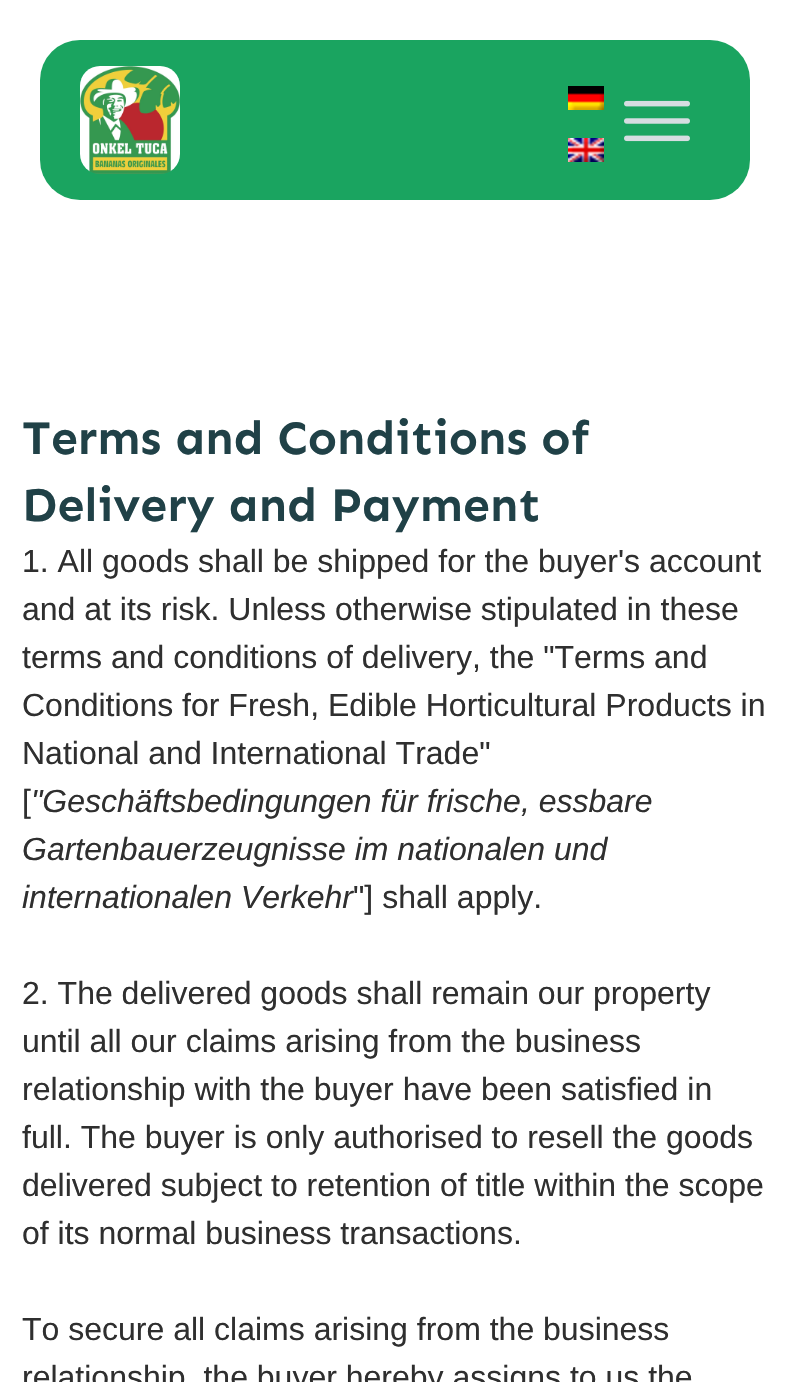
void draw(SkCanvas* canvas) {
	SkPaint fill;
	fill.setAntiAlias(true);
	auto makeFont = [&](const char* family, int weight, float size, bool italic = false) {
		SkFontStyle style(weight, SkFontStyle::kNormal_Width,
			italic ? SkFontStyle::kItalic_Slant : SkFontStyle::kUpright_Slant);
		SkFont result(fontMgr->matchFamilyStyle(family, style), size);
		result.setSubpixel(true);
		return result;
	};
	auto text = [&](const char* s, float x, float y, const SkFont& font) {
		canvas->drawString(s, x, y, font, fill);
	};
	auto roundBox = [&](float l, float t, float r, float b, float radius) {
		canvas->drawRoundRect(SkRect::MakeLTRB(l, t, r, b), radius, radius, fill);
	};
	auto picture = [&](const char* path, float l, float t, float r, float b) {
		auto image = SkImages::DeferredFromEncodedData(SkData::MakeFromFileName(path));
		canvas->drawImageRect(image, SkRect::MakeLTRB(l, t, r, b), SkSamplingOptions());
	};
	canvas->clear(0xFFFFFFFF);
	fill.setColor(0xFF1AA460);
	roundBox(40, 40, 750, 200, 40);
	picture("image0.png", 80, 66, 180, 174);
	picture("image1.png", 568, 86, 604, 110);
	picture("image2.png", 568, 138, 604, 162);
	picture("image3.png", 624, 100, 690, 142);
	auto font1 = makeFont("Sen", 700, 48);
	fill.setColor(0xFF204147);
	text("Terms and Conditions of", 22, 454, font1);
	text("Delivery and Payment", 22, 521, font1);
	auto font2 = makeFont("Liberation Sans", 400, 32);
	fill.setColor(0xFF2F2F2F);
	text("1. All goods shall be shipped for the buyer's account", 22, 572, font2);
	text("and at its risk. Unless otherwise stipulated in these", 22, 620, font2);
	text("terms and conditions of delivery, the \"Terms and", 22, 668, font2);
	text("Conditions for Fresh, Edible Horticultural Products in", 22, 716, font2);
	text("National and International Trade\"", 22, 764, font2);
	text("[", 22, 812, font2);
	auto font3 = makeFont("Liberation Sans", 400, 32, true);
	text("\"Geschäftsbedingungen für frische, essbare", 31, 812, font3);
	text("Gartenbauerzeugnisse im nationalen und", 22, 860, font3);
	text("internationalen Verkehr", 22, 908, font3);
	text("\"] shall apply.", 353, 908, font2);
	text("2. The delivered goods shall remain our property", 22, 1004, font2);
	text("until all our claims arising from the business", 22, 1052, font2);
	text("relationship with the buyer have been satisfied in", 22, 1100, font2);
	text("full. The buyer is only authorised to resell the goods", 22, 1148, font2);
	text("delivered subject to retention of title within the scope", 22, 1196, font2);
	text("of its normal business transactions.", 22, 1244, font2);
	text("To secure all claims arising from the business", 22, 1340, font2);
	text("relationship, the buyer hereby assigns to us the", 22, 1388, font2);
}
